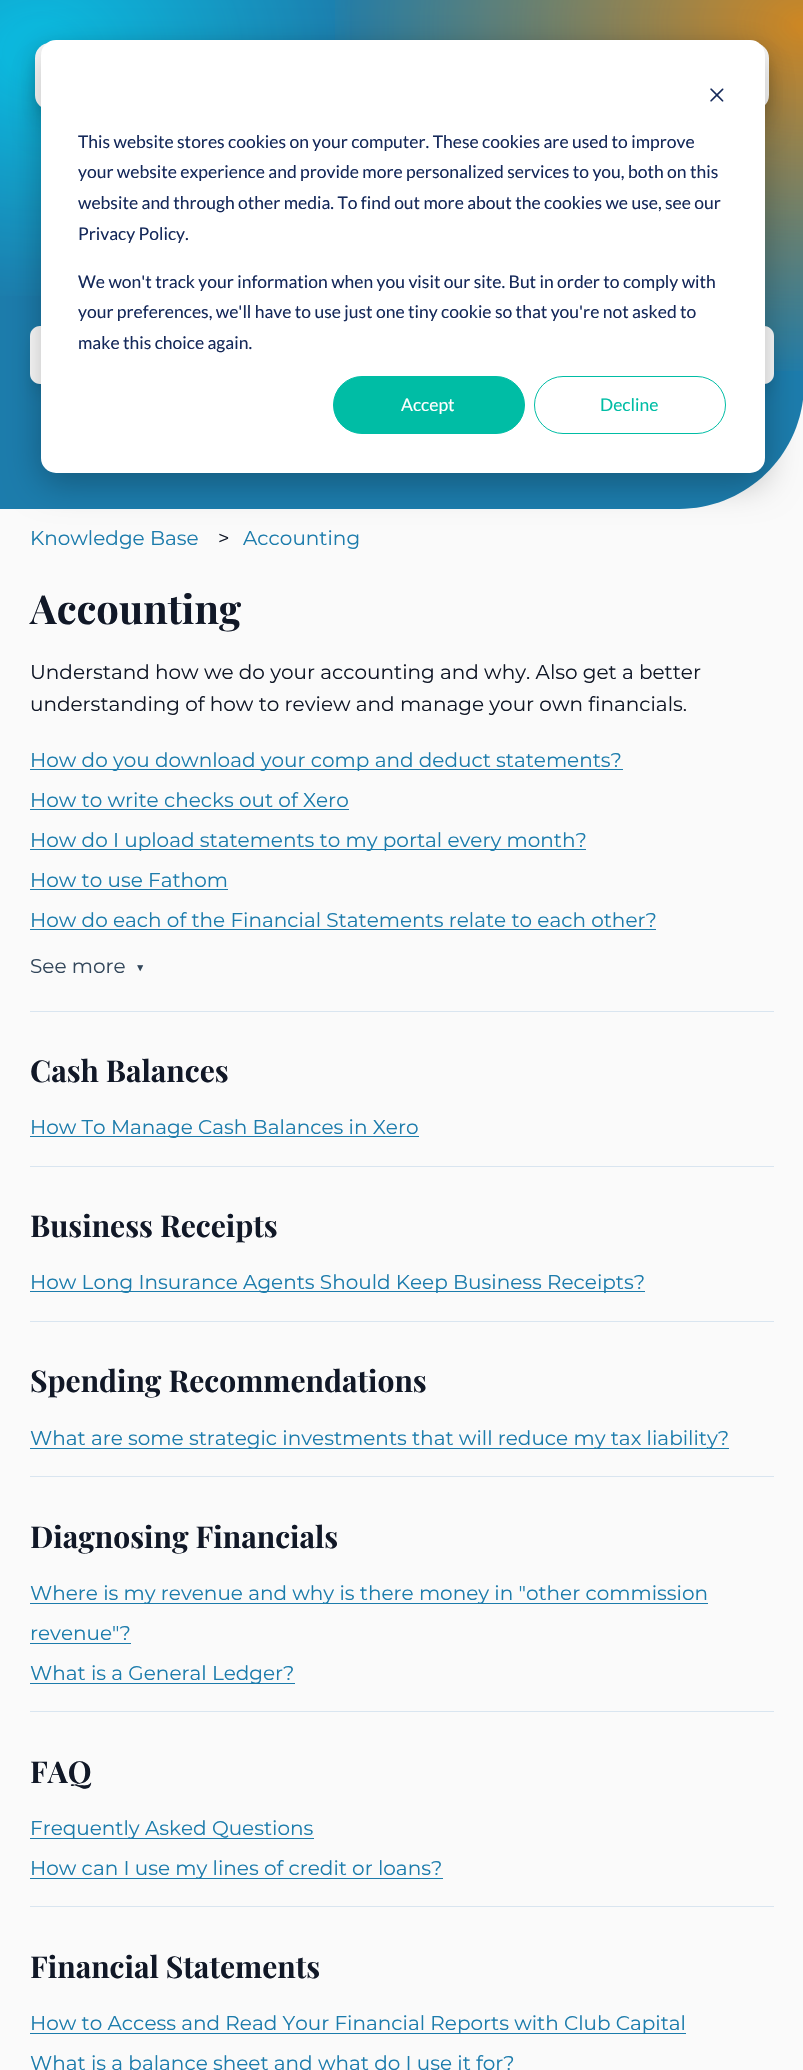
void draw(SkCanvas* canvas) {
	SkPaint fill;
	fill.setAntiAlias(true);
	auto makeFont = [&](const char* family, int weight, float size, bool italic = false) {
		SkFontStyle style(weight, SkFontStyle::kNormal_Width,
			italic ? SkFontStyle::kItalic_Slant : SkFontStyle::kUpright_Slant);
		SkFont result(fontMgr->matchFamilyStyle(family, style), size);
		result.setSubpixel(true);
		return result;
	};
	auto text = [&](const char* s, float x, float y, const SkFont& font) {
		canvas->drawString(s, x, y, font, fill);
	};
	auto box = [&](float l, float t, float r, float b) {
		canvas->drawRect(SkRect::MakeLTRB(l, t, r, b), fill);
	};
	auto roundBox = [&](float l, float t, float r, float b, float radius) {
		canvas->drawRoundRect(SkRect::MakeLTRB(l, t, r, b), radius, radius, fill);
	};
	auto picture = [&](const char* path, float l, float t, float r, float b) {
		auto image = SkImages::DeferredFromEncodedData(SkData::MakeFromFileName(path));
		canvas->drawImageRect(image, SkRect::MakeLTRB(l, t, r, b), SkSamplingOptions());
	};
	canvas->clear(0xFFFAFAFA);
	fill.setColor(0xFF1C7CAC);
	canvas->drawPath(SkPathBuilder().moveTo(0, 0).lineTo(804, 0).lineTo(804, 384).cubicTo(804, 453, 748, 509, 679, 509).lineTo(0, 509).close().detach(), fill);
	{
		const SkColor colors[] = {0x9900E0FF, 0x0000E0FF};
		const float stops[] = {0.1f, 1};
		SkMatrix m = SkMatrix::Translate(40, 51).preScale(322, 254);
		fill.setShader(SkGradientShader::MakeRadial({0, 0}, 1, colors, stops, 2, SkTileMode::kClamp, 0, &m));
		fill.setAlpha(255);
	}
	box(0, 0, 350, 296);
	{
		const SkColor colors[] = {0xCCFA8900, 0x00FA8900};
		const float stops[] = {0, 1};
		SkMatrix m = SkMatrix::Translate(804, 25).preScale(482, 356);
		fill.setShader(SkGradientShader::MakeRadial({0, 0}, 1, colors, stops, 2, SkTileMode::kClamp, 0, &m));
		fill.setAlpha(255);
	}
	box(335, 0, 803, 371);
	fill.setShader(nullptr);
	fill.setColor(0x1A000000);
	fill.setMaskFilter(SkMaskFilter::MakeBlur(kNormal_SkBlurStyle, 6));
	canvas->drawRoundRect(SkRect::MakeLTRB(35, 49, 769, 116), 15, 15, fill);
	fill.setMaskFilter(nullptr);
	fill.setColor(0x17000000);
	fill.setMaskFilter(SkMaskFilter::MakeBlur(kNormal_SkBlurStyle, 11));
	canvas->drawRoundRect(SkRect::MakeLTRB(35, 65, 769, 133), 15, 15, fill);
	fill.setMaskFilter(nullptr);
	fill.setColor(0xFFFFFFFF);
	roundBox(35, 43, 769, 110, 15);
	fill.setColor(0x1A000000);
	fill.setMaskFilter(SkMaskFilter::MakeBlur(kNormal_SkBlurStyle, 4));
	canvas->drawRoundRect(SkRect::MakeLTRB(35, 336, 721, 384), 5, 5, fill);
	fill.setMaskFilter(nullptr);
	fill.setMaskFilter(SkMaskFilter::MakeBlur(kNormal_SkBlurStyle, 9.5f));
	canvas->drawRoundRect(SkRect::MakeLTRB(34, 343, 723, 393), 6, 6, fill);
	fill.setMaskFilter(nullptr);
	fill.setColor(0xFFFFFFFF);
	canvas->drawPath(SkPathBuilder().moveTo(40, 326).lineTo(726, 326).lineTo(726, 384).lineTo(40, 384).cubicTo(34.5f, 384, 30, 379.5f, 30, 374).lineTo(30, 336).cubicTo(30, 330.5f, 34.5f, 326, 40, 326).close().detach(), fill);
	fill.setColor(0x1A000000);
	fill.setMaskFilter(SkMaskFilter::MakeBlur(kNormal_SkBlurStyle, 4));
	canvas->drawRoundRect(SkRect::MakeLTRB(731, 336, 769, 384), 5, 5, fill);
	fill.setMaskFilter(nullptr);
	fill.setMaskFilter(SkMaskFilter::MakeBlur(kNormal_SkBlurStyle, 9.5f));
	canvas->drawRoundRect(SkRect::MakeLTRB(730, 343, 770, 393), 6, 6, fill);
	fill.setMaskFilter(nullptr);
	fill.setColor(0xFFFFFFFF);
	canvas->drawPath(SkPathBuilder().moveTo(726, 326).lineTo(764, 326).cubicTo(769.5f, 326, 774, 330.5f, 774, 336).lineTo(774, 374).cubicTo(774, 379.5f, 769.5f, 384, 764, 384).lineTo(726, 384).close().detach(), fill);
	fill.setColor(0x47000000);
	fill.setMaskFilter(SkMaskFilter::MakeBlur(kNormal_SkBlurStyle, 17.5f));
	canvas->drawRoundRect(SkRect::MakeLTRB(41, 50, 765, 483), 15, 15, fill);
	fill.setMaskFilter(nullptr);
	fill.setColor(0xFFFFFFFF);
	roundBox(41, 40, 765, 473, 15);
	picture("image0.png", 710, 88, 724, 102);
	fill.setColor(0xFF00BDA5);
	canvas->drawRoundRect(SkRect::MakeLTRB(333.5f, 376.5f, 524.5f, 433.5f), 28.5f, 28.5f, fill);
	fill.setStyle(SkPaint::kStroke_Style);
	fill.setStrokeWidth(1);
	canvas->drawRoundRect(SkRect::MakeLTRB(333.5f, 376.5f, 524.5f, 433.5f), 28.5f, 28.5f, fill);
	canvas->drawRoundRect(SkRect::MakeLTRB(534.5f, 376.5f, 725.5f, 433.5f), 28.5f, 28.5f, fill);
	fill.setStyle(SkPaint::kFill_Style);
	fill.setColor(0xFFD9E5F0);
	box(30, 1011, 774, 1012);
	fill.setColor(0xFF1C7CAC);
	box(30, 769, 623, 770);
	box(30, 809, 349, 810);
	box(30, 849, 586, 850);
	box(30, 889, 228, 890);
	box(30, 929, 656, 930);
	fill.setColor(0xFFD9E5F0);
	box(30, 1166, 774, 1167);
	fill.setColor(0xFF1C7CAC);
	box(30, 1136, 419, 1137);
	fill.setColor(0xFFD9E5F0);
	box(30, 1321, 774, 1322);
	fill.setColor(0xFF1C7CAC);
	box(30, 1291, 645, 1292);
	fill.setColor(0xFFD9E5F0);
	box(30, 1476, 774, 1477);
	fill.setColor(0xFF1C7CAC);
	box(30, 1448, 729, 1449);
	fill.setColor(0xFFD9E5F0);
	box(30, 1711, 774, 1712);
	fill.setColor(0xFF1C7CAC);
	box(30, 1603, 708, 1604);
	box(30, 1643, 131, 1644);
	box(30, 1683, 295, 1684);
	fill.setColor(0xFFD9E5F0);
	box(30, 1906, 774, 1907);
	fill.setColor(0xFF1C7CAC);
	box(30, 1838, 314, 1839);
	box(30, 1878, 443, 1879);
	box(30, 2033, 686, 2034);
	auto font1 = makeFont("Lato", 400, 17.5f);
	fill.setColor(0xFF15295A);
	text("This website stores cookies on your computer. These cookies are used to improve", 78, 148, font1);
	text("your website experience and provide more personalized services to you, both on this", 78, 178, font1);
	text("website and through other media. To find out more about the cookies we use, see our", 78, 209, font1);
	text("Privacy Policy.", 78, 240, font1);
	text("We won't track your information when you visit our site. But in order to comply with", 78, 288, font1);
	text("your preferences, we'll have to use just one tiny cookie so that you're not asked to", 78, 318, font1);
	text("make this choice again.", 78, 349, font1);
	fill.setColor(0xFFFFFFFF);
	text("Accept", 401, 411, font1);
	fill.setColor(0xFF00BDA5);
	text("Decline", 600, 411, font1);
	auto font2 = makeFont("Montserrat", 400, 20);
	fill.setColor(0xFF1C7CAC);
	text("Knowledge Base", 30, 545, font2);
	fill.setColor(0xFF111827);
	text(">", 218, 545, font2);
	fill.setColor(0xFF1C7CAC);
	text("Accounting", 243, 545, font2);
	auto font3 = makeFont("Playfair Display", 700, 40);
	fill.setColor(0xFF111827);
	text("Accounting", 30, 624, font3);
	text("Understand how we do your accounting and why. Also get a better", 30, 679, font2);
	text("understanding of how to review and manage your own financials.", 30, 711, font2);
	fill.setColor(0xFF1C7CAC);
	text("How do you download your comp and deduct statements?", 30, 767, font2);
	text("How to write checks out of Xero", 30, 807, font2);
	text("How do I upload statements to my portal every month?", 30, 847, font2);
	text("How to use Fathom", 30, 887, font2);
	text("How do each of the Financial Statements relate to each other?", 30, 927, font2);
	fill.setColor(0xFF33475B);
	text("See more", 30, 973, font2);
	auto font4 = makeFont("Montserrat", 400, 14);
	text("▼", 136, 972, font4);
	auto font5 = makeFont("Playfair Display", 700, 30);
	fill.setColor(0xFF111827);
	text("Cash Balances", 30, 1082, font5);
	fill.setColor(0xFF1C7CAC);
	text("How To Manage Cash Balances in Xero", 30, 1134, font2);
	fill.setColor(0xFF111827);
	text("Business Receipts", 30, 1237, font5);
	fill.setColor(0xFF1C7CAC);
	text("How Long Insurance Agents Should Keep Business Receipts?", 30, 1289, font2);
	fill.setColor(0xFF111827);
	text("Spending Recommendations", 30, 1392, font5);
	fill.setColor(0xFF1C7CAC);
	text("What are some strategic investments that will reduce my tax liability?", 30, 1445, font2);
	fill.setColor(0xFF111827);
	text("Diagnosing Financials", 30, 1548, font5);
	fill.setColor(0xFF1C7CAC);
	text("Where is my revenue and why is there money in \"other commission", 30, 1600, font2);
	text("revenue\"?", 30, 1640, font2);
	text("What is a General Ledger?", 30, 1680, font2);
	fill.setColor(0xFF111827);
	text("FAQ", 30, 1783, font5);
	fill.setColor(0xFF1C7CAC);
	text("Frequently Asked Questions", 30, 1835, font2);
	text("How can I use my lines of credit or loans?", 30, 1875, font2);
	fill.setColor(0xFF111827);
	text("Financial Statements", 30, 1978, font5);
	fill.setColor(0xFF1C7CAC);
	text("How to Access and Read Your Financial Reports with Club Capital", 30, 2030, font2);
	text("What is a balance sheet and what do I use it for?", 30, 2070, font2);
}
